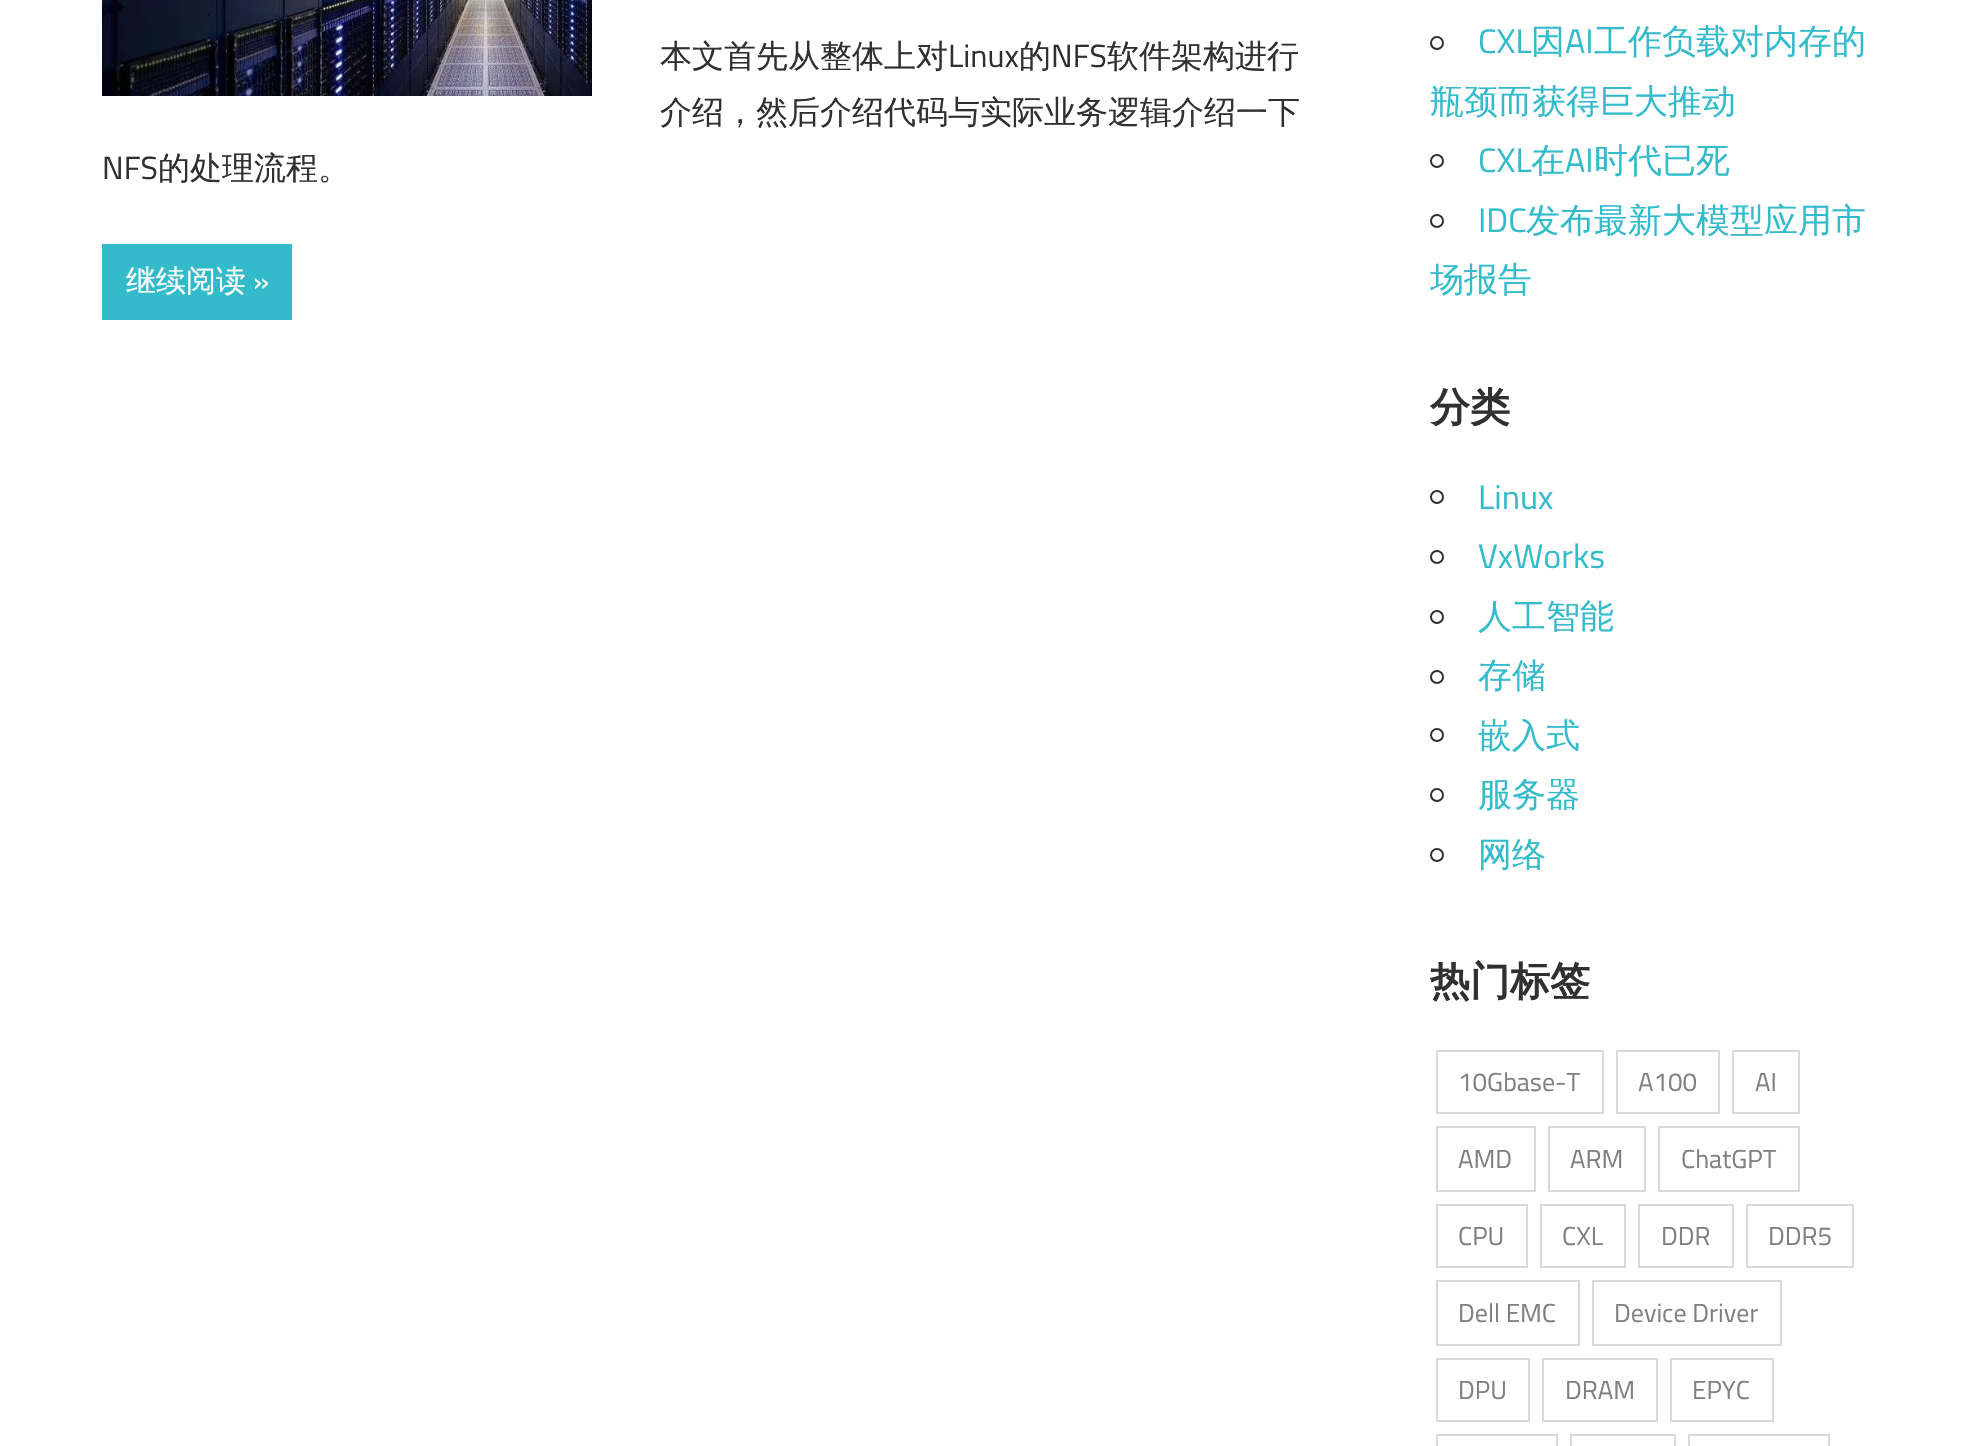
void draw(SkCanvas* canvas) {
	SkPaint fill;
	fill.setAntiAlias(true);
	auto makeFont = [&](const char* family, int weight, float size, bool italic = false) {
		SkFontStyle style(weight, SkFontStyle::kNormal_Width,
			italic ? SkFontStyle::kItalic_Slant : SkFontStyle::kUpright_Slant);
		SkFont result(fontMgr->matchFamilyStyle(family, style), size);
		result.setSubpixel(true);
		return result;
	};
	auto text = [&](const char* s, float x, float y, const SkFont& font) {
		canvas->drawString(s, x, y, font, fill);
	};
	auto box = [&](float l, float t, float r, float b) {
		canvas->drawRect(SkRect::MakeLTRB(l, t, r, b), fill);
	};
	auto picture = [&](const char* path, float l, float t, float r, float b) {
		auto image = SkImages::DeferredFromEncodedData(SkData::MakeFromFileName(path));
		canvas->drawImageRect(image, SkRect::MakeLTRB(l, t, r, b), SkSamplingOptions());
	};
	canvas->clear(0xFFFFFFFF);
	picture("image0.png", 102, 0, 592, 96);
	fill.setColor(0xFF33BBCC);
	box(102, 244, 292, 320);
	fill.setStyle(SkPaint::kStroke_Style);
	fill.setStrokeWidth(2);
	fill.setColor(0xFF303030);
	canvas->drawCircle(1437, 43, 6, fill);
	canvas->drawCircle(1437, 161, 6, fill);
	canvas->drawCircle(1437, 221, 6, fill);
	canvas->drawCircle(1437, 497, 6, fill);
	canvas->drawCircle(1437, 557, 6, fill);
	canvas->drawCircle(1437, 617, 6, fill);
	canvas->drawCircle(1437, 677, 6, fill);
	canvas->drawCircle(1437, 735, 6, fill);
	canvas->drawCircle(1437, 795, 6, fill);
	canvas->drawCircle(1437, 855, 6, fill);
	fill.setColor(0xFFD9D9D9);
	canvas->drawRect(SkRect::MakeLTRB(1437, 1051, 1603, 1113), fill);
	canvas->drawRect(SkRect::MakeLTRB(1617, 1051, 1719, 1113), fill);
	canvas->drawRect(SkRect::MakeLTRB(1733, 1051, 1799, 1113), fill);
	canvas->drawRect(SkRect::MakeLTRB(1437, 1127, 1535, 1191), fill);
	canvas->drawRect(SkRect::MakeLTRB(1549, 1127, 1645, 1191), fill);
	canvas->drawRect(SkRect::MakeLTRB(1659, 1127, 1799, 1191), fill);
	canvas->drawRect(SkRect::MakeLTRB(1437, 1205, 1527, 1267), fill);
	canvas->drawRect(SkRect::MakeLTRB(1541, 1205, 1625, 1267), fill);
	canvas->drawRect(SkRect::MakeLTRB(1639, 1205, 1733, 1267), fill);
	canvas->drawRect(SkRect::MakeLTRB(1747, 1205, 1853, 1267), fill);
	canvas->drawRect(SkRect::MakeLTRB(1437, 1281, 1579, 1345), fill);
	canvas->drawRect(SkRect::MakeLTRB(1593, 1281, 1781, 1345), fill);
	canvas->drawRect(SkRect::MakeLTRB(1437, 1359, 1529, 1421), fill);
	canvas->drawRect(SkRect::MakeLTRB(1543, 1359, 1657, 1421), fill);
	canvas->drawRect(SkRect::MakeLTRB(1671, 1359, 1773, 1421), fill);
	canvas->drawRect(SkRect::MakeLTRB(1437, 1435, 1557, 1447), fill);
	canvas->drawRect(SkRect::MakeLTRB(1571, 1435, 1675, 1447), fill);
	canvas->drawRect(SkRect::MakeLTRB(1689, 1435, 1829, 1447), fill);
	auto font1 = makeFont("WenQuanYi Zen Hei", 500, 32);
	fill.setStyle(SkPaint::kFill_Style);
	fill.setColor(0xFF303030);
	text("本文首先从整体上对", 660, 67, font1);
	auto font2 = makeFont("Titillium Web", 400, 32);
	text("Linux", 948, 67, font2);
	text("的", 1019, 67, font1);
	text("NFS", 1051, 67, font2);
	text("软件架构进行", 1107, 67, font1);
	text("介绍，然后介绍代码与实际业务逻辑介绍一下", 660, 123, font1);
	text("NFS", 102, 179, font2);
	text("的处理流程。", 158, 179, font1);
	auto font3 = makeFont("WenQuanYi Zen Hei", 500, 30);
	fill.setColor(0xFFFFFFFF);
	text("继续阅读", 126, 291, font3);
	auto font4 = makeFont("Titillium Web", 400, 30);
	text("»", 253, 291, font4);
	auto font5 = makeFont("Titillium Web", 400, 34);
	fill.setColor(0xFF33BBCC);
	text("CXL", 1478, 53, font5);
	auto font6 = makeFont("WenQuanYi Zen Hei", 500, 34);
	text("因", 1531, 53, font6);
	text("AI", 1565, 53, font5);
	text("工作负载对内存的", 1594, 53, font6);
	text("瓶颈而获得巨大推动", 1430, 113, font6);
	text("CXL", 1478, 172, font5);
	text("在", 1531, 172, font6);
	text("AI", 1565, 172, font5);
	text("时代已死", 1594, 172, font6);
	text("IDC", 1478, 232, font5);
	text("发布最新大模型应用市", 1526, 232, font6);
	text("场报告", 1430, 291, font6);
	auto font7 = makeFont("WenQuanYi Zen Hei", 700, 40);
	fill.setColor(0xFF303030);
	text("分类", 1430, 421, font7);
	fill.setColor(0xFF33BBCC);
	text("Linux", 1478, 509, font5);
	text("VxWorks", 1478, 568, font5);
	text("人工智能", 1478, 628, font6);
	text("存储", 1478, 687, font6);
	text("嵌入式", 1478, 747, font6);
	text("服务器", 1478, 806, font6);
	text("网络", 1478, 866, font6);
	fill.setColor(0xFF303030);
	text("热门标签", 1430, 995, font7);
	auto font8 = makeFont("Titillium Web", 400, 26);
	fill.setColor(0xFF808080);
	text("10Gbase-T", 1458, 1091, font8);
	text("A100", 1638, 1091, font8);
	text("AI", 1755, 1091, font8);
	text("AMD", 1458, 1168, font8);
	text("ARM", 1570, 1168, font8);
	text("ChatGPT", 1681, 1168, font8);
	text("CPU", 1458, 1245, font8);
	text("CXL", 1562, 1245, font8);
	text("DDR", 1661, 1245, font8);
	text("DDR5", 1768, 1245, font8);
	text("Dell EMC", 1458, 1322, font8);
	text("Device Driver", 1614, 1322, font8);
	text("DPU", 1458, 1399, font8);
	text("DRAM", 1565, 1399, font8);
	text("EPYC", 1692, 1399, font8);
}
